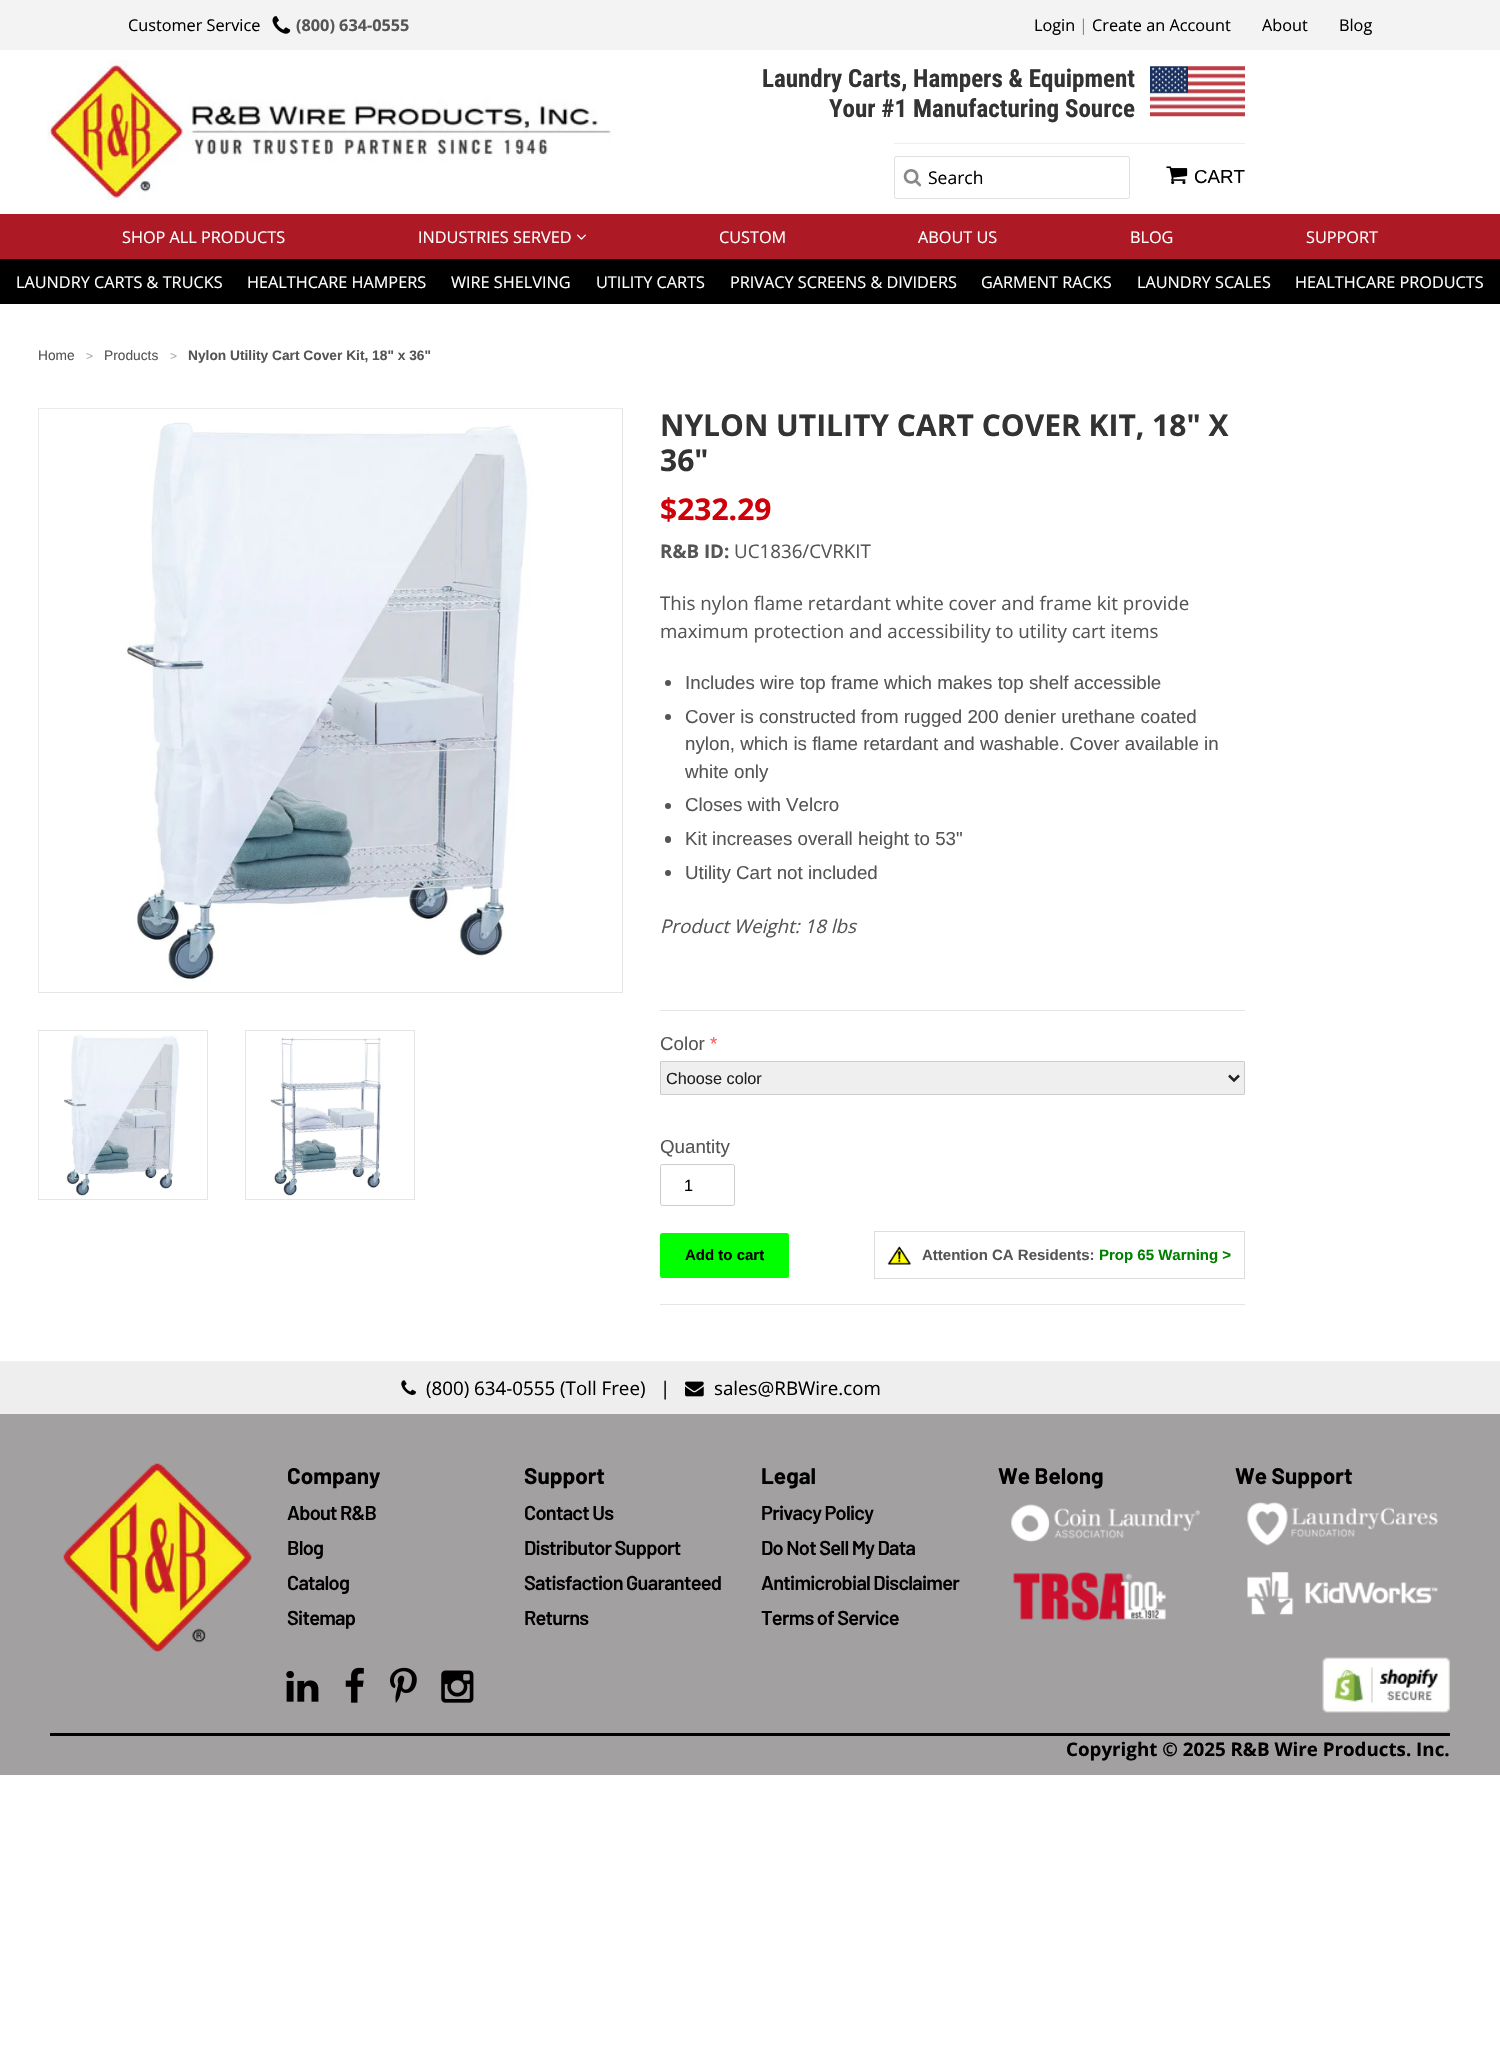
void draw(SkCanvas* canvas) {
	SkPaint fill;
	fill.setAntiAlias(true);
	auto makeFont = [&](const char* family, int weight, float size, bool italic = false) {
		SkFontStyle style(weight, SkFontStyle::kNormal_Width,
			italic ? SkFontStyle::kItalic_Slant : SkFontStyle::kUpright_Slant);
		SkFont result(fontMgr->matchFamilyStyle(family, style), size);
		result.setSubpixel(true);
		return result;
	};
	auto text = [&](const char* s, float x, float y, const SkFont& font) {
		canvas->drawString(s, x, y, font, fill);
	};
	auto spacedText = [&](const char* s, float x, float y, const SkFont& font, const SkPaint& ink, float letter, float word) {
		std::vector<SkGlyphID> glyphs(font.countText(s, strlen(s), SkTextEncoding::kUTF8));
		std::vector<float> xs(glyphs.size());
		font.textToGlyphs(s, strlen(s), SkTextEncoding::kUTF8, glyphs);
		font.getXPos(glyphs, xs, x);
		float extra = 0;
		for (size_t i = 0; i < glyphs.size(); i++) {
			xs[i] += extra;
			extra += letter + word * (glyphs[i] == font.unicharToGlyph(' '));
		}
		canvas->drawTextBlob(SkTextBlob::MakeFromPosHGlyphs(glyphs, xs, y, font), 0, 0, ink);
	};
	auto box = [&](float l, float t, float r, float b) {
		canvas->drawRect(SkRect::MakeLTRB(l, t, r, b), fill);
	};
	auto roundBox = [&](float l, float t, float r, float b, float radius) {
		canvas->drawRoundRect(SkRect::MakeLTRB(l, t, r, b), radius, radius, fill);
	};
	auto picture = [&](const char* path, float l, float t, float r, float b) {
		auto image = SkImages::DeferredFromEncodedData(SkData::MakeFromFileName(path));
		canvas->drawImageRect(image, SkRect::MakeLTRB(l, t, r, b), SkSamplingOptions());
	};
	canvas->clear(0xFFFFFFFF);
	fill.setColor(0xFFF3F3F3);
	box(0, 0, 1500, 50);
	picture("image0.png", 272, 16, 291, 34);
	picture("image1.png", 47, 60, 612, 201);
	picture("image2.png", 1150, 66, 1245, 117);
	fill.setColor(0xFFEEEEEE);
	box(894, 143, 1245, 144);
	fill.setStyle(SkPaint::kStroke_Style);
	fill.setStrokeWidth(1);
	fill.setColor(0xFFE0E0E0);
	canvas->drawRoundRect(SkRect::MakeLTRB(894.5f, 156.5f, 1129.5f, 198.5f), 2, 2, fill);
	picture("image3.png", 903, 169, 922, 187);
	picture("image4.png", 1166, 166, 1188, 185);
	fill.setStyle(SkPaint::kFill_Style);
	fill.setColor(0xFF000000);
	box(0, 259, 1500, 304);
	fill.setColor(0xFFAD1925);
	box(0, 214, 1500, 259);
	picture("image5.png", 577, 234, 586, 240);
	fill.setStyle(SkPaint::kStroke_Style);
	fill.setColor(0xFFE5E5E5);
	canvas->drawRect(SkRect::MakeLTRB(38.5f, 408.5f, 622.5f, 992.5f), fill);
	picture("image6.png", 38, 408, 621, 991);
	canvas->drawRect(SkRect::MakeLTRB(38.5f, 1030.5f, 207.5f, 1199.5f), fill);
	picture("image7.png", 38, 1031, 179, 1199);
	canvas->drawRect(SkRect::MakeLTRB(245.5f, 1030.5f, 414.5f, 1199.5f), fill);
	picture("image8.png", 270, 1037, 381, 1196);
	fill.setStyle(SkPaint::kFill_Style);
	fill.setColor(0xFF555555);
	canvas->drawCircle(668, 683, 3, fill);
	canvas->drawCircle(668, 717, 3, fill);
	canvas->drawCircle(668, 806, 3, fill);
	roundBox(665, 836, 671, 843, 3);
	canvas->drawCircle(668, 873, 3, fill);
	fill.setColor(0xFFE5E5E5);
	box(660, 1010, 1245, 1011);
	box(660, 1304, 1245, 1305);
	fill.setColor(0xFFEFEFEF);
	canvas->drawRoundRect(SkRect::MakeLTRB(660.5f, 1061.5f, 1244.5f, 1094.5f), 0.5f, 0.5f, fill);
	fill.setStyle(SkPaint::kStroke_Style);
	fill.setColor(0xFFCCCCCC);
	canvas->drawRoundRect(SkRect::MakeLTRB(660.5f, 1061.5f, 1244.5f, 1094.5f), 0.5f, 0.5f, fill);
	fill.setStrokeWidth(2.5f);
	fill.setColor(0xFF222222);
	canvas->drawPath(SkPathBuilder().moveTo(1229, 1075.5f).lineTo(1234, 1080.5f).lineTo(1239, 1075.5f).detach(), fill);
	fill.setStrokeWidth(1);
	fill.setColor(0xFFCCCCCC);
	canvas->drawRoundRect(SkRect::MakeLTRB(660.5f, 1164.5f, 734.5f, 1205.5f), 2, 2, fill);
	fill.setStyle(SkPaint::kFill_Style);
	fill.setColor(0xFF00FF00);
	roundBox(660, 1233, 789, 1278, 2.5f);
	fill.setStyle(SkPaint::kStroke_Style);
	fill.setColor(0xFFDDDDDD);
	canvas->drawRect(SkRect::MakeLTRB(874.5f, 1231.5f, 1244.5f, 1278.5f), fill);
	picture("image9.png", 887, 1246, 912, 1265);
	fill.setStyle(SkPaint::kFill_Style);
	fill.setColor(0xFFEEEEEE);
	box(0, 1361, 1500, 1414);
	picture("image10.png", 401, 1380, 416, 1395);
	picture("image11.png", 685, 1381, 704, 1397);
	fill.setColor(0xFFA2A0A1);
	box(0, 1414, 1500, 1775);
	picture("image12.png", 63, 1463, 252, 1652);
	picture("image13.png", 1011, 1504, 1200, 1542);
	picture("image14.png", 1013, 1572, 1166, 1621);
	picture("image15.png", 1247, 1502, 1438, 1546);
	picture("image16.png", 1247, 1572, 1438, 1615);
	picture("image17.png", 286, 1671, 319, 1702);
	picture("image18.png", 345, 1667, 364, 1703);
	picture("image19.png", 390, 1667, 417, 1703);
	picture("image20.png", 441, 1670, 474, 1703);
	picture("image21.png", 1322, 1657, 1450, 1713);
	fill.setColor(0xFF000000);
	box(50, 1733, 1450, 1736);
	auto font1 = makeFont("Open Sans", 400, 16.25f);
	text("Customer Service", 128, 31, font1);
	auto font2 = makeFont("Open Sans", 700, 16.25f);
	fill.setColor(0xFF555555);
	text("(800) 634-0555", 296, 31, font2);
	fill.setColor(0xFF000000);
	text("Login", 1034, 31, font1);
	fill.setColor(0xFF888888);
	text("|", 1079, 31, font1);
	fill.setColor(0xFF000000);
	text("Create an Account", 1092, 31, font1);
	text("About", 1262, 31, font1);
	text("Blog", 1339, 31, font1);
	auto font3 = makeFont("Roboto Condensed", 700, 25);
	fill.setColor(0xFF333333);
	text("Laundry Carts, Hampers & Equipment", 762, 87, font3);
	text("Your #1 Manufacturing Source", 829, 117, font3);
	auto font4 = makeFont("Open Sans", 400, 17.5f);
	fill.setColor(0xFF000000);
	text("Search", 928, 184, font4);
	auto font5 = makeFont("Liberation Sans", 400, 18.75f);
	text("CART", 1194, 183, font5);
	fill.setColor(0xFFFFFFFF);
	text("SHOP ALL PRODUCTS", 122, 243, font1);
	text("INDUSTRIES SERVED", 418, 243, font1);
	text("CUSTOM", 719, 243, font1);
	text("ABOUT US", 918, 243, font1);
	text("BLOG", 1130, 243, font1);
	text("SUPPORT", 1306, 243, font1);
	text("LAUNDRY CARTS & TRUCKS", 16, 288, font1);
	text("HEALTHCARE HAMPERS", 247, 288, font1);
	text("WIRE SHELVING", 451, 288, font1);
	text("UTILITY CARTS", 596, 288, font1);
	text("PRIVACY SCREENS & DIVIDERS", 730, 288, font1);
	text("GARMENT RACKS", 981, 288, font1);
	text("LAUNDRY SCALES", 1137, 288, font1);
	text("HEALTHCARE PRODUCTS", 1295, 288, font1);
	auto font6 = makeFont("Liberation Sans", 400, 13.75f);
	fill.setColor(0xFF555555);
	text("Home", 38, 360, font6);
	auto font7 = makeFont("Liberation Sans", 400, 12);
	fill.setColor(0xFFAAAAAA);
	text(">", 86, 360, font7);
	fill.setColor(0xFF555555);
	text("Products", 104, 360, font6);
	fill.setColor(0xFFAAAAAA);
	text(">", 170, 360, font7);
	auto font8 = makeFont("Liberation Sans", 700, 13.75f);
	fill.setColor(0xFF555555);
	text("Nylon Utility Cart Cover Kit, 18\" x 36\"", 188, 360, font8);
	auto font9 = makeFont("Open Sans", 700, 30);
	fill.setColor(0xFF333333);
	text("NYLON UTILITY CART COVER KIT, 18\" X", 660, 436, font9);
	text("36\"", 660, 471, font9);
	fill.setColor(0xFFCF0008);
	text("$232.29", 660, 520, font9);
	auto font10 = makeFont("Open Sans", 700, 18.75f);
	fill.setColor(0xFF555555);
	text("R&B ID:", 660, 558, font10);
	auto font11 = makeFont("Open Sans", 400, 18.75f);
	text("UC1836/CVRKIT", 734, 558, font11);
	text("This nylon flame retardant white cover and frame kit provide", 660, 610, font11);
	text("maximum protection and accessibility to utility cart items", 660, 638, font11);
	text("Includes wire top frame which makes top shelf accessible", 685, 689, font5);
	text("Cover is constructed from rugged 200 denier urethane coated", 685, 723, font5);
	text("nylon, which is flame retardant and washable. Cover available in", 685, 750, font5);
	text("white only", 685, 778, font5);
	text("Closes with Velcro", 685, 811, font5);
	text("Kit increases overall height to 53\"", 685, 845, font5);
	text("Utility Cart not included", 685, 879, font5);
	auto font12 = makeFont("Open Sans", 400, 18.75f, true);
	text("Product Weight: 18 lbs", 660, 933, font12);
	text("Color", 660, 1050, font5);
	fill.setColor(0xFFFF5D5D);
	text("*", 710, 1050, font5);
	auto font13 = makeFont("Liberation Sans", 400, 16.25f);
	fill.setColor(0xFF222222);
	text("Choose color", 666, 1084, font13);
	fill.setColor(0xFF555555);
	text("Quantity", 660, 1153, font5);
	fill.setColor(0xFF000000);
	text("1", 684, 1191, font13);
	auto font14 = makeFont("Liberation Sans", 700, 15);
	text("Add to cart", 685, 1260, font14);
	fill.setColor(0xFF555555);
	text("Attention CA Residents:", 922, 1260, font14);
	fill.setColor(0xFF008000);
	text("Prop 65 Warning >", 1099, 1260, font14);
	fill.setColor(0xFF000000);
	text("(800) 634-0555 (Toll Free)", 426, 1395, font11);
	text("|", 660, 1395, font11);
	text("sales@RBWire.com", 714, 1395, font11);
	auto font15 = makeFont("Barlow", 700, 22.5f);
	text("Company", 287, 1484, font15);
	auto font16 = makeFont("Barlow", 600, 20);
	spacedText("About R&B", 287, 1520, font16, fill, -0.75f, 0);
	spacedText("Blog", 287, 1555, font16, fill, -0.75f, 0);
	spacedText("Catalog", 287, 1590, font16, fill, -0.75f, 0);
	spacedText("Sitemap", 287, 1625, font16, fill, -0.75f, 0);
	text("Support", 524, 1484, font15);
	spacedText("Contact Us", 524, 1520, font16, fill, -0.75f, 0);
	spacedText("Distributor Support", 524, 1555, font16, fill, -0.75f, 0);
	spacedText("Satisfaction Guaranteed", 524, 1590, font16, fill, -0.75f, 0);
	spacedText("Returns", 524, 1625, font16, fill, -0.75f, 0);
	text("Legal", 761, 1484, font15);
	spacedText("Privacy Policy", 761, 1520, font16, fill, -0.75f, 0);
	spacedText("Do Not Sell My Data", 761, 1555, font16, fill, -0.75f, 0);
	spacedText("Antimicrobial Disclaimer", 761, 1590, font16, fill, -0.75f, 0);
	spacedText("Terms of Service", 761, 1625, font16, fill, -0.75f, 0);
	text("We Belong", 998, 1484, font15);
	text("We Support", 1235, 1484, font15);
	text("Copyright © 2025 R&B Wire Products. Inc.", 1066, 1756, font10);
}
